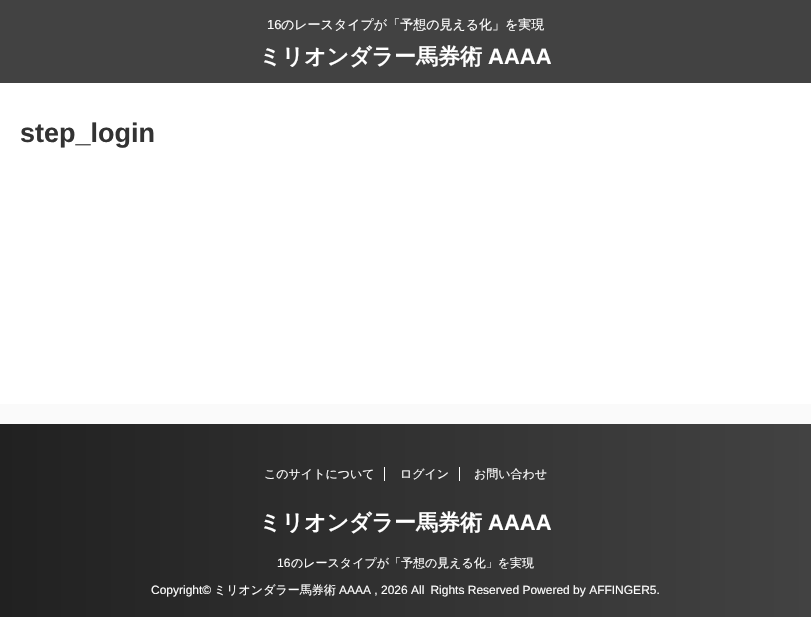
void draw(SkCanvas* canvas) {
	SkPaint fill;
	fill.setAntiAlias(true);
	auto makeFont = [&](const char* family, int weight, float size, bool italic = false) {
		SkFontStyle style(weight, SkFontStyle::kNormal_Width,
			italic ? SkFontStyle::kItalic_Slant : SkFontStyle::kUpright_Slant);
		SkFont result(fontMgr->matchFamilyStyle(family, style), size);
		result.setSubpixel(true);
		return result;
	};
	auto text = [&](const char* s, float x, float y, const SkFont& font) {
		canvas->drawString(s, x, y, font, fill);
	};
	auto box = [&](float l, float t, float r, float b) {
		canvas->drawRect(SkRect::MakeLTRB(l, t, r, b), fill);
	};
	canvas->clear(0xFFFAFAFA);
	fill.setColor(0xFF424242);
	box(0, 0, 811, 83);
	fill.setColor(0xFFFFFFFF);
	box(0, 83, 811, 404);
	{
		const SkColor colors[] = {0xFF424242, 0xFF212121};
		const float stops[] = {0, 1};
		const SkPoint ends[] = {{811, 521}, {0, 521}};
		fill.setShader(SkGradientShader::MakeLinear(ends, colors, stops, 2, SkTileMode::kClamp));
		fill.setAlpha(255);
	}
	box(0, 424, 811, 617);
	fill.setShader(nullptr);
	fill.setColor(0xFFFFFFFF);
	box(384, 467, 385, 481);
	box(459, 467, 460, 481);
	auto font1 = makeFont("Liberation Sans", 400, 13);
	text("16", 267, 29, font1);
	auto font2 = makeFont("WenQuanYi Zen Hei", 500, 13);
	text("のレースタイプが「予想の見える化」を実現", 281, 29, font2);
	auto font3 = makeFont("WenQuanYi Zen Hei", 700, 22);
	text("ミリオンダラー馬券術", 259, 64, font3);
	auto font4 = makeFont("Liberation Sans", 700, 22);
	text("AAAA", 488, 64, font4);
	auto font5 = makeFont("Liberation Sans", 700, 27);
	fill.setColor(0xFF333333);
	text("step_login", 20, 142, font5);
	auto font6 = makeFont("WenQuanYi Zen Hei", 500, 12);
	fill.setColor(0xFFFFFFFF);
	text("このサイトについて", 264, 478, font6);
	text("ログイン", 400, 478, font6);
	text("お問い合わせ", 474, 478, font6);
	text("ミリオンダラー馬券術", 259, 530, font3);
	text("AAAA", 488, 530, font4);
	auto font7 = makeFont("Liberation Sans", 400, 12);
	text("16", 277, 567, font7);
	text("のレースタイプが「予想の見える化」を実現", 291, 567, font6);
	text("Copyright©", 151, 594, font7);
	text("ミリオンダラー馬券術", 214, 594, font6);
	text("AAAA , 2026 All Rights Reserved Powered by AFFINGER5.", 339, 594, font7);
}
